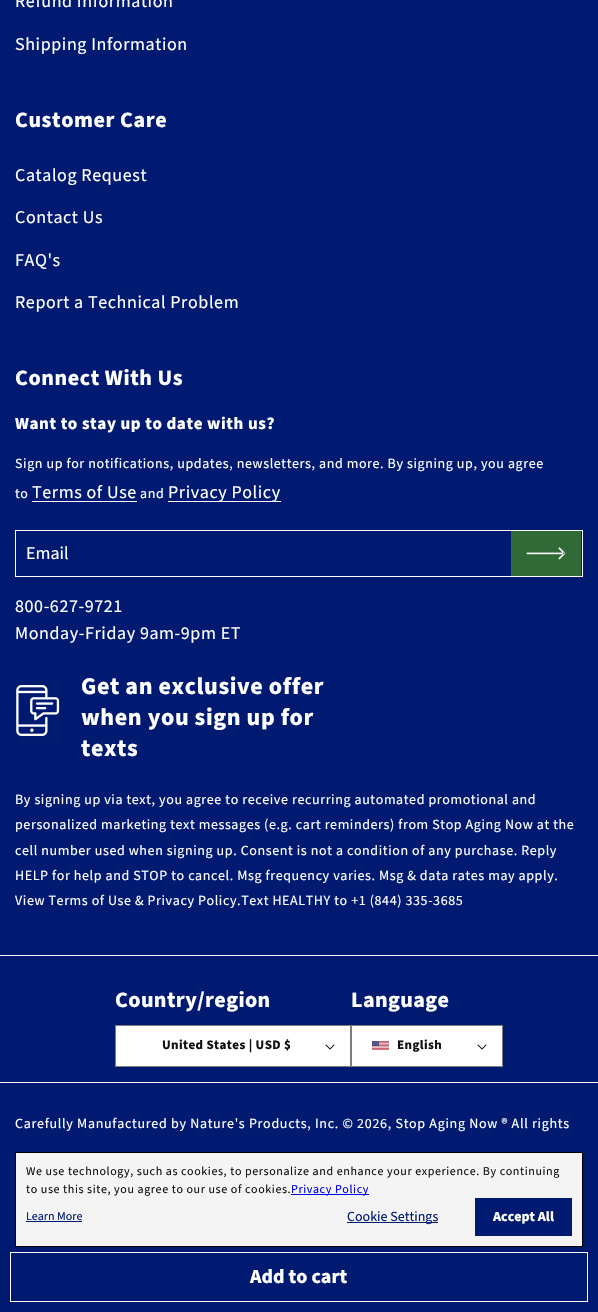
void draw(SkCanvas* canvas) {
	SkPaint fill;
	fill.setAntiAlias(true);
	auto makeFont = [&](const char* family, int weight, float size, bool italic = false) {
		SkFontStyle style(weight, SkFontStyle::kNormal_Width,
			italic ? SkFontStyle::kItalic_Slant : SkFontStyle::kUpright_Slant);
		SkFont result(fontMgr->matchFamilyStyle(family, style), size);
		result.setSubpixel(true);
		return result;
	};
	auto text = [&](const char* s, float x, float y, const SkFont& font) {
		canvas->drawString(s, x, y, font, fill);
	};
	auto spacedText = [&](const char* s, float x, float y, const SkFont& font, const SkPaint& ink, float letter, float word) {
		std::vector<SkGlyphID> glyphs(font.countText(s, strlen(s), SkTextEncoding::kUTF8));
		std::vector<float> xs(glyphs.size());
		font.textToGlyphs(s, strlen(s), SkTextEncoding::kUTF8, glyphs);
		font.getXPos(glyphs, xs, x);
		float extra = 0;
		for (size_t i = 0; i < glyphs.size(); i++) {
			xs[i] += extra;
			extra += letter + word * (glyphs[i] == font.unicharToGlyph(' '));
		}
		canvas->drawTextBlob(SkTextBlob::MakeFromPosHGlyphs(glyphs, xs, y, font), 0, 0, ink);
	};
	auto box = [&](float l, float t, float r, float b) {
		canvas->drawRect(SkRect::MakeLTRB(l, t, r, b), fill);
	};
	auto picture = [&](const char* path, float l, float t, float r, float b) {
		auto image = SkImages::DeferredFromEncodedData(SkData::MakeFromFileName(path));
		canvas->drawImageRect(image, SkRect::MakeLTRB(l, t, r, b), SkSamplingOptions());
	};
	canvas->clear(0xFF001A71);
	fill.setColor(0xFFFFFFFF);
	box(32, 501, 137, 502);
	box(168, 501, 281, 502);
	fill.setStyle(SkPaint::kStroke_Style);
	fill.setStrokeWidth(1);
	canvas->drawRect(SkRect::MakeLTRB(15.5f, 530.5f, 582.5f, 576.5f), fill);
	fill.setStyle(SkPaint::kFill_Style);
	fill.setColor(0xFF2F6A37);
	box(511, 531, 581, 576);
	picture("image0.png", 526, 547, 566, 560);
	fill.setStyle(SkPaint::kStroke_Style);
	fill.setColor(0xFF011A6C);
	canvas->drawRect(SkRect::MakeLTRB(15.5f, 684.5f, 60.5f, 737.5f), fill);
	picture("image1.png", 16, 685, 60, 736);
	fill.setStyle(SkPaint::kFill_Style);
	fill.setColor(0xFF011969);
	box(0, 954, 598, 955);
	fill.setColor(0xFFFFFFFF);
	box(0, 955, 598, 956);
	box(116, 1026, 350, 1066);
	picture("image2.png", 325, 1044, 335, 1050);
	fill.setStyle(SkPaint::kStroke_Style);
	fill.setColor(0xFF7D7D7D);
	canvas->drawRect(SkRect::MakeLTRB(115.5f, 1025.5f, 350.5f, 1066.5f), fill);
	fill.setStyle(SkPaint::kFill_Style);
	fill.setColor(0xFFFFFFFF);
	box(352, 1026, 502, 1066);
	picture("image3.png", 372, 1041, 389, 1050);
	picture("image2.png", 477, 1044, 487, 1050);
	fill.setStyle(SkPaint::kStroke_Style);
	fill.setColor(0xFF7D7D7D);
	canvas->drawRect(SkRect::MakeLTRB(351.5f, 1025.5f, 502.5f, 1066.5f), fill);
	fill.setStyle(SkPaint::kFill_Style);
	fill.setColor(0xFFFFFFFF);
	box(0, 1082, 598, 1083);
	fill.setColor(0xFFF4F4F4);
	canvas->drawRect(SkRect::MakeLTRB(15.5f, 1152.5f, 582.5f, 1246.5f), fill);
	fill.setStyle(SkPaint::kStroke_Style);
	fill.setColor(0xFF000000);
	canvas->drawRect(SkRect::MakeLTRB(15.5f, 1152.5f, 582.5f, 1246.5f), fill);
	fill.setStyle(SkPaint::kFill_Style);
	fill.setColor(0xFF0000EE);
	box(291, 1194, 369, 1195);
	fill.setColor(0xFF001A71);
	box(26, 1221, 82, 1222);
	box(347, 1222, 438, 1223);
	box(475, 1198, 572, 1236);
	fill.setStyle(SkPaint::kStroke_Style);
	fill.setColor(0xFFFFFFFF);
	canvas->drawRect(SkRect::MakeLTRB(10.5f, 1252.5f, 587.5f, 1301.5f), fill);
	auto font1 = makeFont("Source Sans Pro", 400, 18);
	fill.setStyle(SkPaint::kFill_Style);
	spacedText("Refund Information", 15, 7, font1, fill, 0.6f, 0);
	spacedText("Shipping Information", 15, 50, font1, fill, 0.6f, 0);
	auto font2 = makeFont("Source Sans Pro", 700, 22);
	spacedText("Customer Care", 15, 127, font2, fill, 0.6f, 0);
	spacedText("Catalog Request", 15, 181, font1, fill, 0.6f, 0);
	spacedText("Contact Us", 15, 223, font1, fill, 0.6f, 0);
	spacedText("FAQ's", 15, 266, font1, fill, 0.6f, 0);
	spacedText("Report a Technical Problem", 15, 308, font1, fill, 0.6f, 0);
	spacedText("Connect With Us", 15, 385, font2, fill, 0.6f, 0);
	auto font3 = makeFont("Source Sans Pro", 700, 17);
	spacedText("Want to stay up to date with us?", 15, 429, font3, fill, 0.6f, 0);
	auto font4 = makeFont("Source Sans Pro", 400, 14);
	spacedText("Sign up for notifications, updates, newsletters, and more. By signing up, you agree", 15, 468, font4, fill, 0.6f, 0);
	spacedText("to", 15, 498, font4, fill, 0.6f, 0);
	spacedText("Terms of Use", 32, 498, font1, fill, 0.6f, 0);
	spacedText("and", 140, 498, font4, fill, 0.6f, 0);
	spacedText("Privacy Policy", 168, 498, font1, fill, 0.6f, 0);
	text("Email", 26, 559, font1);
	spacedText("800-627-9721", 15, 612, font1, fill, 0.6f, 0);
	spacedText("Monday-Friday 9am-9pm ET", 15, 639, font1, fill, 0.6f, 0);
	auto font5 = makeFont("Source Sans Pro", 700, 24);
	spacedText("Get an exclusive offer", 81, 694, font5, fill, 0.6f, 0);
	spacedText("when you sign up for", 81, 725, font5, fill, 0.6f, 0);
	spacedText("texts", 81, 756, font5, fill, 0.6f, 0);
	spacedText("By signing up via text, you agree to receive recurring automated promotional and", 15, 804, font4, fill, 0.6f, 0);
	spacedText("personalized marketing text messages (e.g. cart reminders) from Stop Aging Now at the", 15, 829, font4, fill, 0.6f, 0);
	spacedText("cell number used when signing up. Consent is not a condition of any purchase. Reply", 15, 855, font4, fill, 0.6f, 0);
	spacedText("HELP for help and STOP to cancel. Msg frequency varies. Msg & data rates may apply.", 15, 880, font4, fill, 0.6f, 0);
	spacedText("View Terms of Use & Privacy Policy.Text HEALTHY to +1 (844) 335-3685", 15, 905, font4, fill, 0.6f, 0);
	spacedText("Country/region", 115, 1007, font2, fill, 0.4f, 0);
	auto font6 = makeFont("Source Sans Pro", 700, 13);
	fill.setColor(0xFF121212);
	spacedText("United States | USD $", 162, 1049, font6, fill, 0.4f, 0);
	fill.setColor(0xFFFFFFFF);
	spacedText("Language", 351, 1007, font2, fill, 0.4f, 0);
	fill.setColor(0xFF121212);
	spacedText("English", 397, 1049, font6, fill, 0.4f, 0);
	fill.setColor(0xFFFFFFFF);
	spacedText("Carefully Manufactured by Nature's Products, Inc. © 2026, Stop Aging Now ® All rights", 15, 1128, font4, fill, 0.7f, 0);
	auto font7 = makeFont("Source Sans Pro", 400, 12);
	fill.setColor(0xFF121212);
	spacedText("We use technology, such as cookies, to personalize and enhance your experience. By continuing", 26, 1175, font7, fill, 0.6f, 0);
	spacedText("to use this site, you agree to our use of cookies.", 26, 1193, font7, fill, 0.6f, 0);
	fill.setColor(0xFF0000EE);
	spacedText("Privacy Policy", 291, 1193, font7, fill, 0.6f, 0);
	fill.setColor(0xFF001A71);
	text("Learn More", 26, 1220, font7);
	text("Cookie Settings", 347, 1221, font4);
	auto font8 = makeFont("Source Sans Pro", 700, 14);
	fill.setColor(0xFFFFFFFF);
	text("Accept All", 493, 1221, font8);
	auto font9 = makeFont("Source Sans Pro", 700, 20);
	text("Add to cart", 250, 1283, font9);
}
